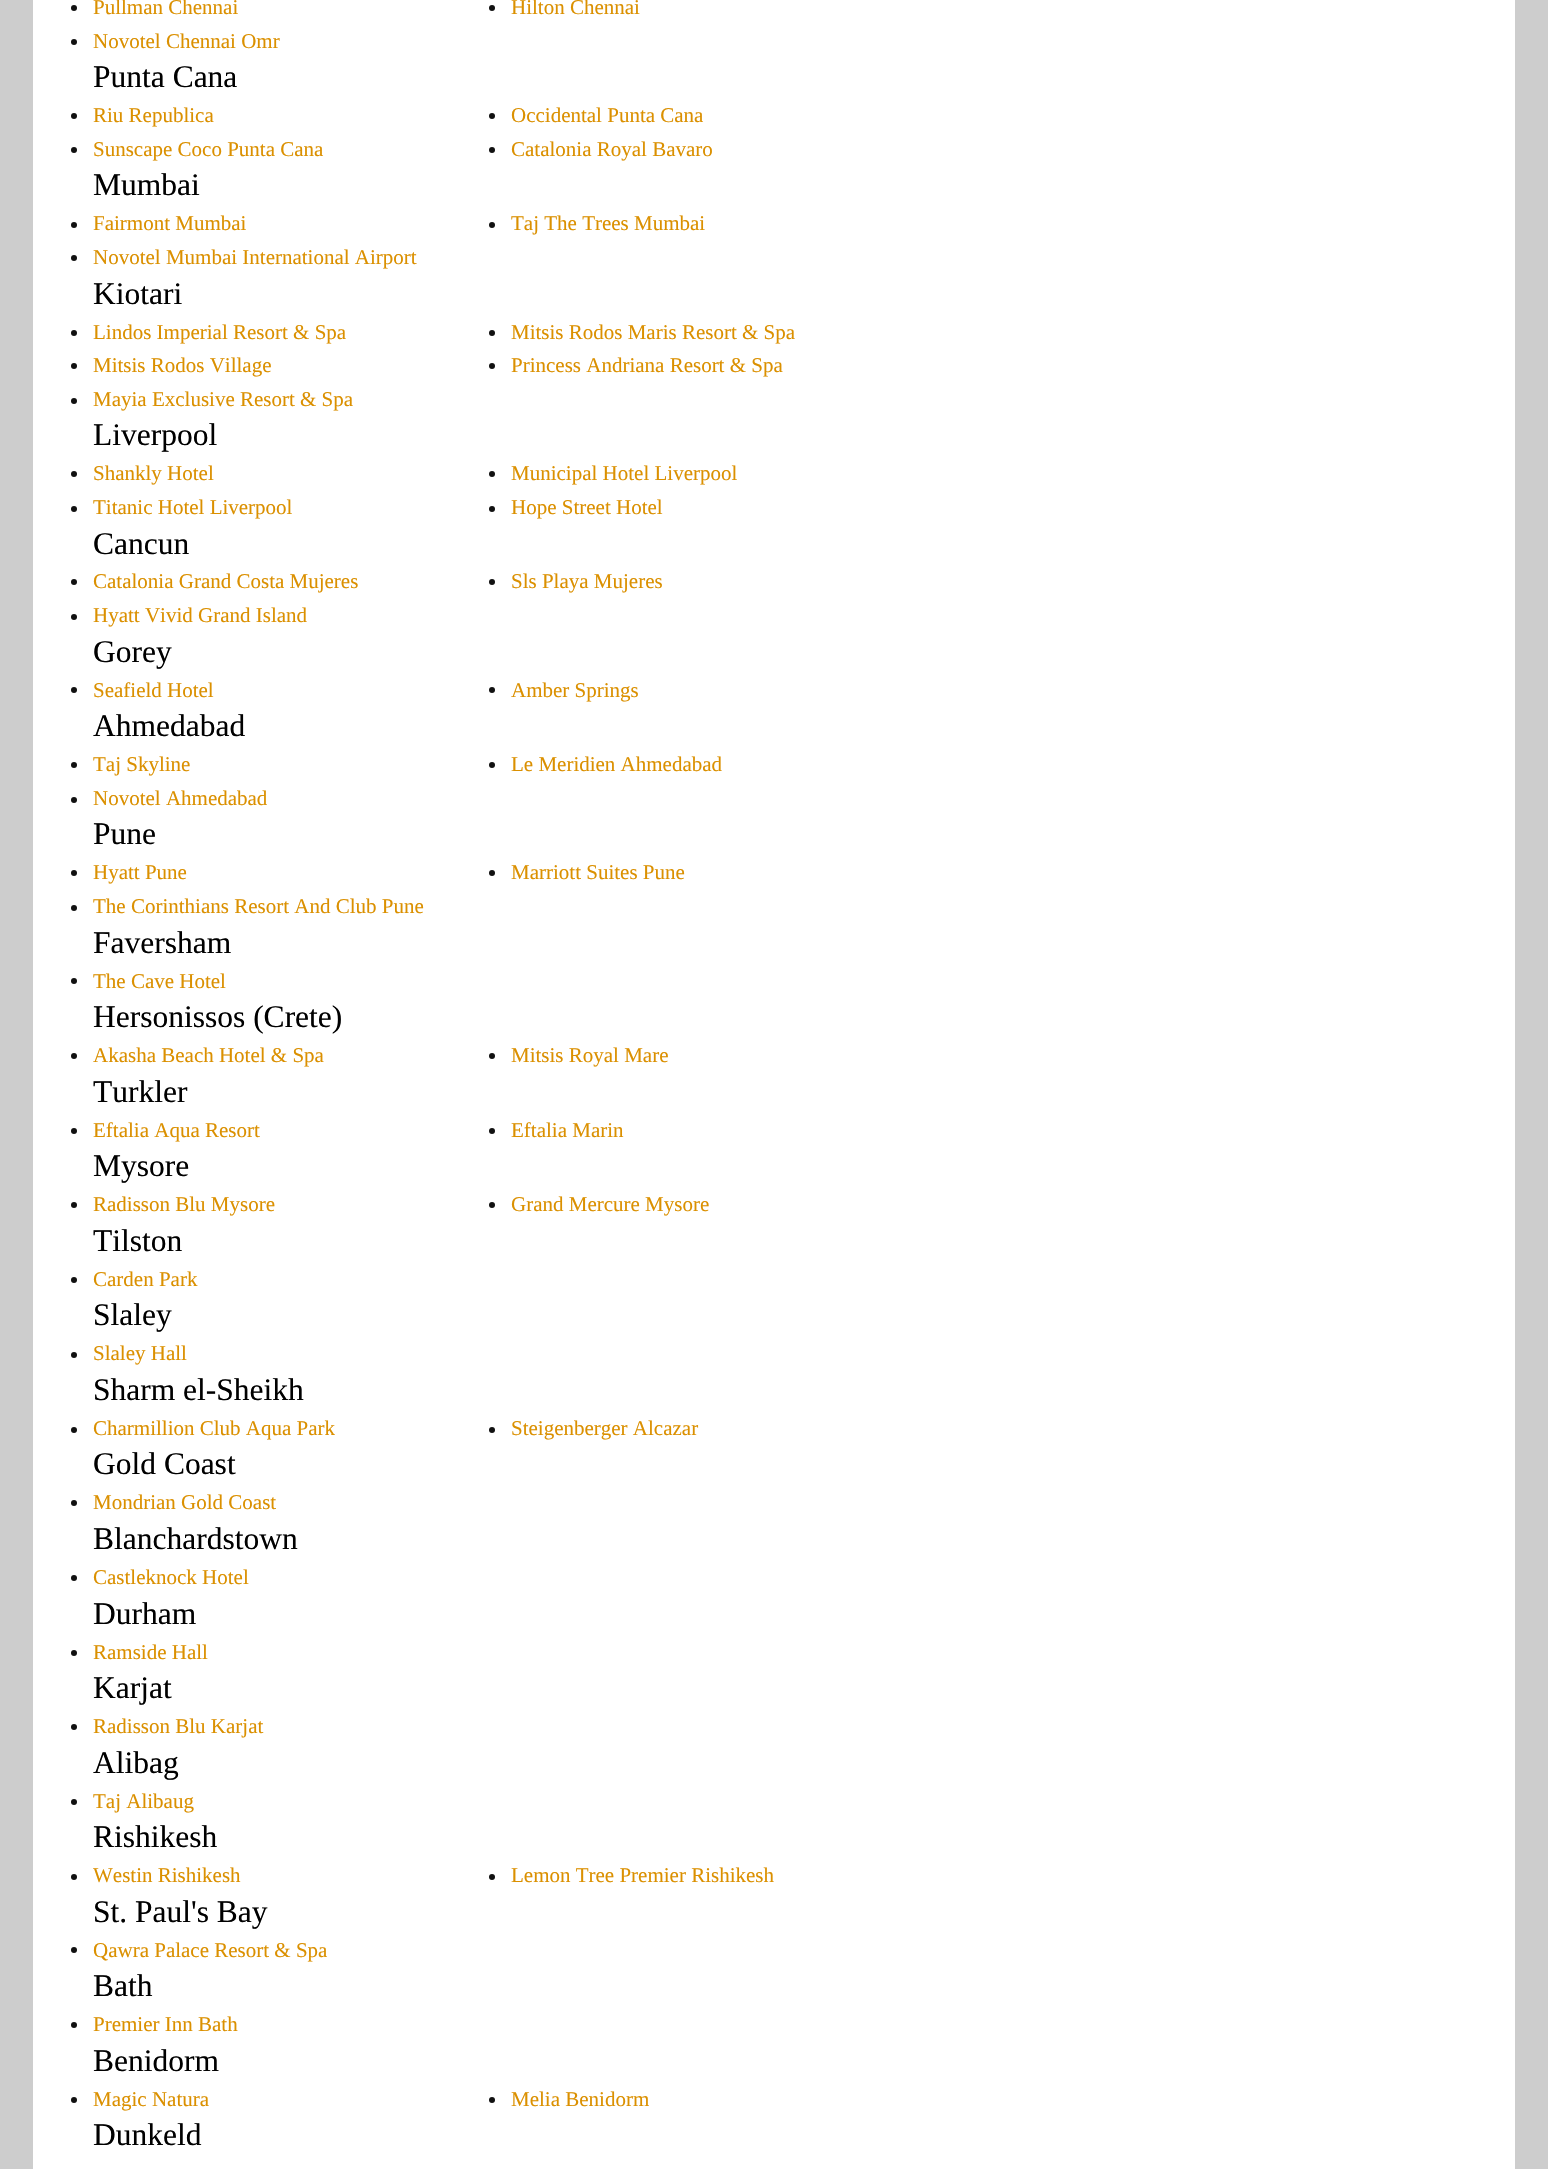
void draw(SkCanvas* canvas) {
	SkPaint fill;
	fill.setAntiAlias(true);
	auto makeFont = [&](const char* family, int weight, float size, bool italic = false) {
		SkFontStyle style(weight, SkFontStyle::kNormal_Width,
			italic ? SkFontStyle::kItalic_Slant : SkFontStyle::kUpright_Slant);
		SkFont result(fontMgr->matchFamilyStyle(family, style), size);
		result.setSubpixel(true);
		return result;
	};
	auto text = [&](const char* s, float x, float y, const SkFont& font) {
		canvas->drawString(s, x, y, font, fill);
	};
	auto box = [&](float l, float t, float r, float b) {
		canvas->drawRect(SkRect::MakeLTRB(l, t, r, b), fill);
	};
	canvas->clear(0xFFCDCDCD);
	fill.setColor(0xFFFFFFFF);
	box(33, 0, 1515, 2169);
	fill.setColor(0xFF111111);
	canvas->drawCircle(74, 8, 3, fill);
	canvas->drawCircle(492, 8, 3, fill);
	canvas->drawCircle(74, 42, 3, fill);
	canvas->drawCircle(74, 116, 3, fill);
	canvas->drawCircle(492, 116, 3, fill);
	canvas->drawCircle(74, 150, 3, fill);
	canvas->drawCircle(492, 150, 3, fill);
	canvas->drawCircle(74, 225, 3, fill);
	canvas->drawCircle(492, 225, 3, fill);
	canvas->drawCircle(74, 258, 3, fill);
	canvas->drawCircle(74, 333, 3, fill);
	canvas->drawCircle(492, 333, 3, fill);
	canvas->drawCircle(74, 366, 3, fill);
	canvas->drawCircle(492, 366, 3, fill);
	canvas->drawCircle(74, 401, 3, fill);
	canvas->drawCircle(74, 474, 3, fill);
	canvas->drawCircle(492, 474, 3, fill);
	canvas->drawCircle(74, 509, 3, fill);
	canvas->drawCircle(492, 509, 3, fill);
	canvas->drawCircle(74, 582, 3, fill);
	canvas->drawCircle(492, 582, 3, fill);
	canvas->drawCircle(74, 617, 3, fill);
	canvas->drawCircle(74, 690, 3, fill);
	canvas->drawCircle(492, 690, 3, fill);
	canvas->drawCircle(74, 765, 3, fill);
	canvas->drawCircle(492, 765, 3, fill);
	canvas->drawCircle(74, 800, 3, fill);
	canvas->drawCircle(74, 873, 3, fill);
	canvas->drawCircle(492, 873, 3, fill);
	canvas->drawCircle(74, 908, 3, fill);
	canvas->drawCircle(74, 981, 3, fill);
	canvas->drawCircle(74, 1056, 3, fill);
	canvas->drawCircle(492, 1056, 3, fill);
	canvas->drawCircle(74, 1131, 3, fill);
	canvas->drawCircle(492, 1131, 3, fill);
	canvas->drawCircle(74, 1205, 3, fill);
	canvas->drawCircle(492, 1205, 3, fill);
	canvas->drawCircle(74, 1280, 3, fill);
	canvas->drawCircle(74, 1355, 3, fill);
	canvas->drawCircle(74, 1430, 3, fill);
	canvas->drawCircle(492, 1430, 3, fill);
	canvas->drawCircle(74, 1503, 3, fill);
	canvas->drawCircle(74, 1578, 3, fill);
	canvas->drawCircle(74, 1653, 3, fill);
	canvas->drawCircle(74, 1727, 3, fill);
	canvas->drawCircle(74, 1802, 3, fill);
	canvas->drawCircle(74, 1877, 3, fill);
	canvas->drawCircle(492, 1877, 3, fill);
	canvas->drawCircle(74, 1950, 3, fill);
	canvas->drawCircle(74, 2025, 3, fill);
	canvas->drawCircle(74, 2100, 3, fill);
	canvas->drawCircle(492, 2100, 3, fill);
	auto font1 = makeFont("Liberation Serif", 400, 21);
	fill.setColor(0xFFDB9000);
	text("Pullman Chennai", 93, 14, font1);
	text("Hilton Chennai", 511, 14, font1);
	text("Novotel Chennai Omr", 93, 48, font1);
	auto font2 = makeFont("Liberation Serif", 400, 31.5f);
	fill.setColor(0xFF000000);
	text("Punta Cana", 93, 87, font2);
	fill.setColor(0xFFDB9000);
	text("Riu Republica", 93, 122, font1);
	text("Occidental Punta Cana", 511, 122, font1);
	text("Sunscape Coco Punta Cana", 93, 156, font1);
	text("Catalonia Royal Bavaro", 511, 156, font1);
	fill.setColor(0xFF000000);
	text("Mumbai", 93, 195, font2);
	fill.setColor(0xFFDB9000);
	text("Fairmont Mumbai", 93, 230, font1);
	text("Taj The Trees Mumbai", 511, 230, font1);
	text("Novotel Mumbai International Airport", 93, 264, font1);
	fill.setColor(0xFF000000);
	text("Kiotari", 93, 304, font2);
	fill.setColor(0xFFDB9000);
	text("Lindos Imperial Resort & Spa", 93, 339, font1);
	text("Mitsis Rodos Maris Resort & Spa", 511, 339, font1);
	text("Mitsis Rodos Village", 93, 372, font1);
	text("Princess Andriana Resort & Spa", 511, 372, font1);
	text("Mayia Exclusive Resort & Spa", 93, 406, font1);
	fill.setColor(0xFF000000);
	text("Liverpool", 93, 445, font2);
	fill.setColor(0xFFDB9000);
	text("Shankly Hotel", 93, 480, font1);
	text("Municipal Hotel Liverpool", 511, 480, font1);
	text("Titanic Hotel Liverpool", 93, 514, font1);
	text("Hope Street Hotel", 511, 514, font1);
	fill.setColor(0xFF000000);
	text("Cancun", 93, 554, font2);
	fill.setColor(0xFFDB9000);
	text("Catalonia Grand Costa Mujeres", 93, 588, font1);
	text("Sls Playa Mujeres", 511, 588, font1);
	text("Hyatt Vivid Grand Island", 93, 622, font1);
	fill.setColor(0xFF000000);
	text("Gorey", 93, 662, font2);
	fill.setColor(0xFFDB9000);
	text("Seafield Hotel", 93, 697, font1);
	text("Amber Springs", 511, 697, font1);
	fill.setColor(0xFF000000);
	text("Ahmedabad", 93, 736, font2);
	fill.setColor(0xFFDB9000);
	text("Taj Skyline", 93, 771, font1);
	text("Le Meridien Ahmedabad", 511, 771, font1);
	text("Novotel Ahmedabad", 93, 805, font1);
	fill.setColor(0xFF000000);
	text("Pune", 93, 844, font2);
	fill.setColor(0xFFDB9000);
	text("Hyatt Pune", 93, 879, font1);
	text("Marriott Suites Pune", 511, 879, font1);
	text("The Corinthians Resort And Club Pune", 93, 913, font1);
	fill.setColor(0xFF000000);
	text("Faversham", 93, 953, font2);
	fill.setColor(0xFFDB9000);
	text("The Cave Hotel", 93, 988, font1);
	fill.setColor(0xFF000000);
	text("Hersonissos (Crete)", 93, 1027, font2);
	fill.setColor(0xFFDB9000);
	text("Akasha Beach Hotel & Spa", 93, 1062, font1);
	text("Mitsis Royal Mare", 511, 1062, font1);
	fill.setColor(0xFF000000);
	text("Turkler", 93, 1102, font2);
	fill.setColor(0xFFDB9000);
	text("Eftalia Aqua Resort", 93, 1137, font1);
	text("Eftalia Marin", 511, 1137, font1);
	fill.setColor(0xFF000000);
	text("Mysore", 93, 1176, font2);
	fill.setColor(0xFFDB9000);
	text("Radisson Blu Mysore", 93, 1211, font1);
	text("Grand Mercure Mysore", 511, 1211, font1);
	fill.setColor(0xFF000000);
	text("Tilston", 93, 1251, font2);
	fill.setColor(0xFFDB9000);
	text("Carden Park", 93, 1286, font1);
	fill.setColor(0xFF000000);
	text("Slaley", 93, 1325, font2);
	fill.setColor(0xFFDB9000);
	text("Slaley Hall", 93, 1360, font1);
	fill.setColor(0xFF000000);
	text("Sharm el-Sheikh", 93, 1400, font2);
	fill.setColor(0xFFDB9000);
	text("Charmillion Club Aqua Park", 93, 1435, font1);
	text("Steigenberger Alcazar", 511, 1435, font1);
	fill.setColor(0xFF000000);
	text("Gold Coast", 93, 1474, font2);
	fill.setColor(0xFFDB9000);
	text("Mondrian Gold Coast", 93, 1509, font1);
	fill.setColor(0xFF000000);
	text("Blanchardstown", 93, 1549, font2);
	fill.setColor(0xFFDB9000);
	text("Castleknock Hotel", 93, 1584, font1);
	fill.setColor(0xFF000000);
	text("Durham", 93, 1624, font2);
	fill.setColor(0xFFDB9000);
	text("Ramside Hall", 93, 1659, font1);
	fill.setColor(0xFF000000);
	text("Karjat", 93, 1698, font2);
	fill.setColor(0xFFDB9000);
	text("Radisson Blu Karjat", 93, 1733, font1);
	fill.setColor(0xFF000000);
	text("Alibag", 93, 1773, font2);
	fill.setColor(0xFFDB9000);
	text("Taj Alibaug", 93, 1808, font1);
	fill.setColor(0xFF000000);
	text("Rishikesh", 93, 1847, font2);
	fill.setColor(0xFFDB9000);
	text("Westin Rishikesh", 93, 1882, font1);
	text("Lemon Tree Premier Rishikesh", 511, 1882, font1);
	fill.setColor(0xFF000000);
	text("St. Paul's Bay", 93, 1922, font2);
	fill.setColor(0xFFDB9000);
	text("Qawra Palace Resort & Spa", 93, 1957, font1);
	fill.setColor(0xFF000000);
	text("Bath", 93, 1996, font2);
	fill.setColor(0xFFDB9000);
	text("Premier Inn Bath", 93, 2031, font1);
	fill.setColor(0xFF000000);
	text("Benidorm", 93, 2071, font2);
	fill.setColor(0xFFDB9000);
	text("Magic Natura", 93, 2106, font1);
	text("Melia Benidorm", 511, 2106, font1);
	fill.setColor(0xFF000000);
	text("Dunkeld", 93, 2145, font2);
}
